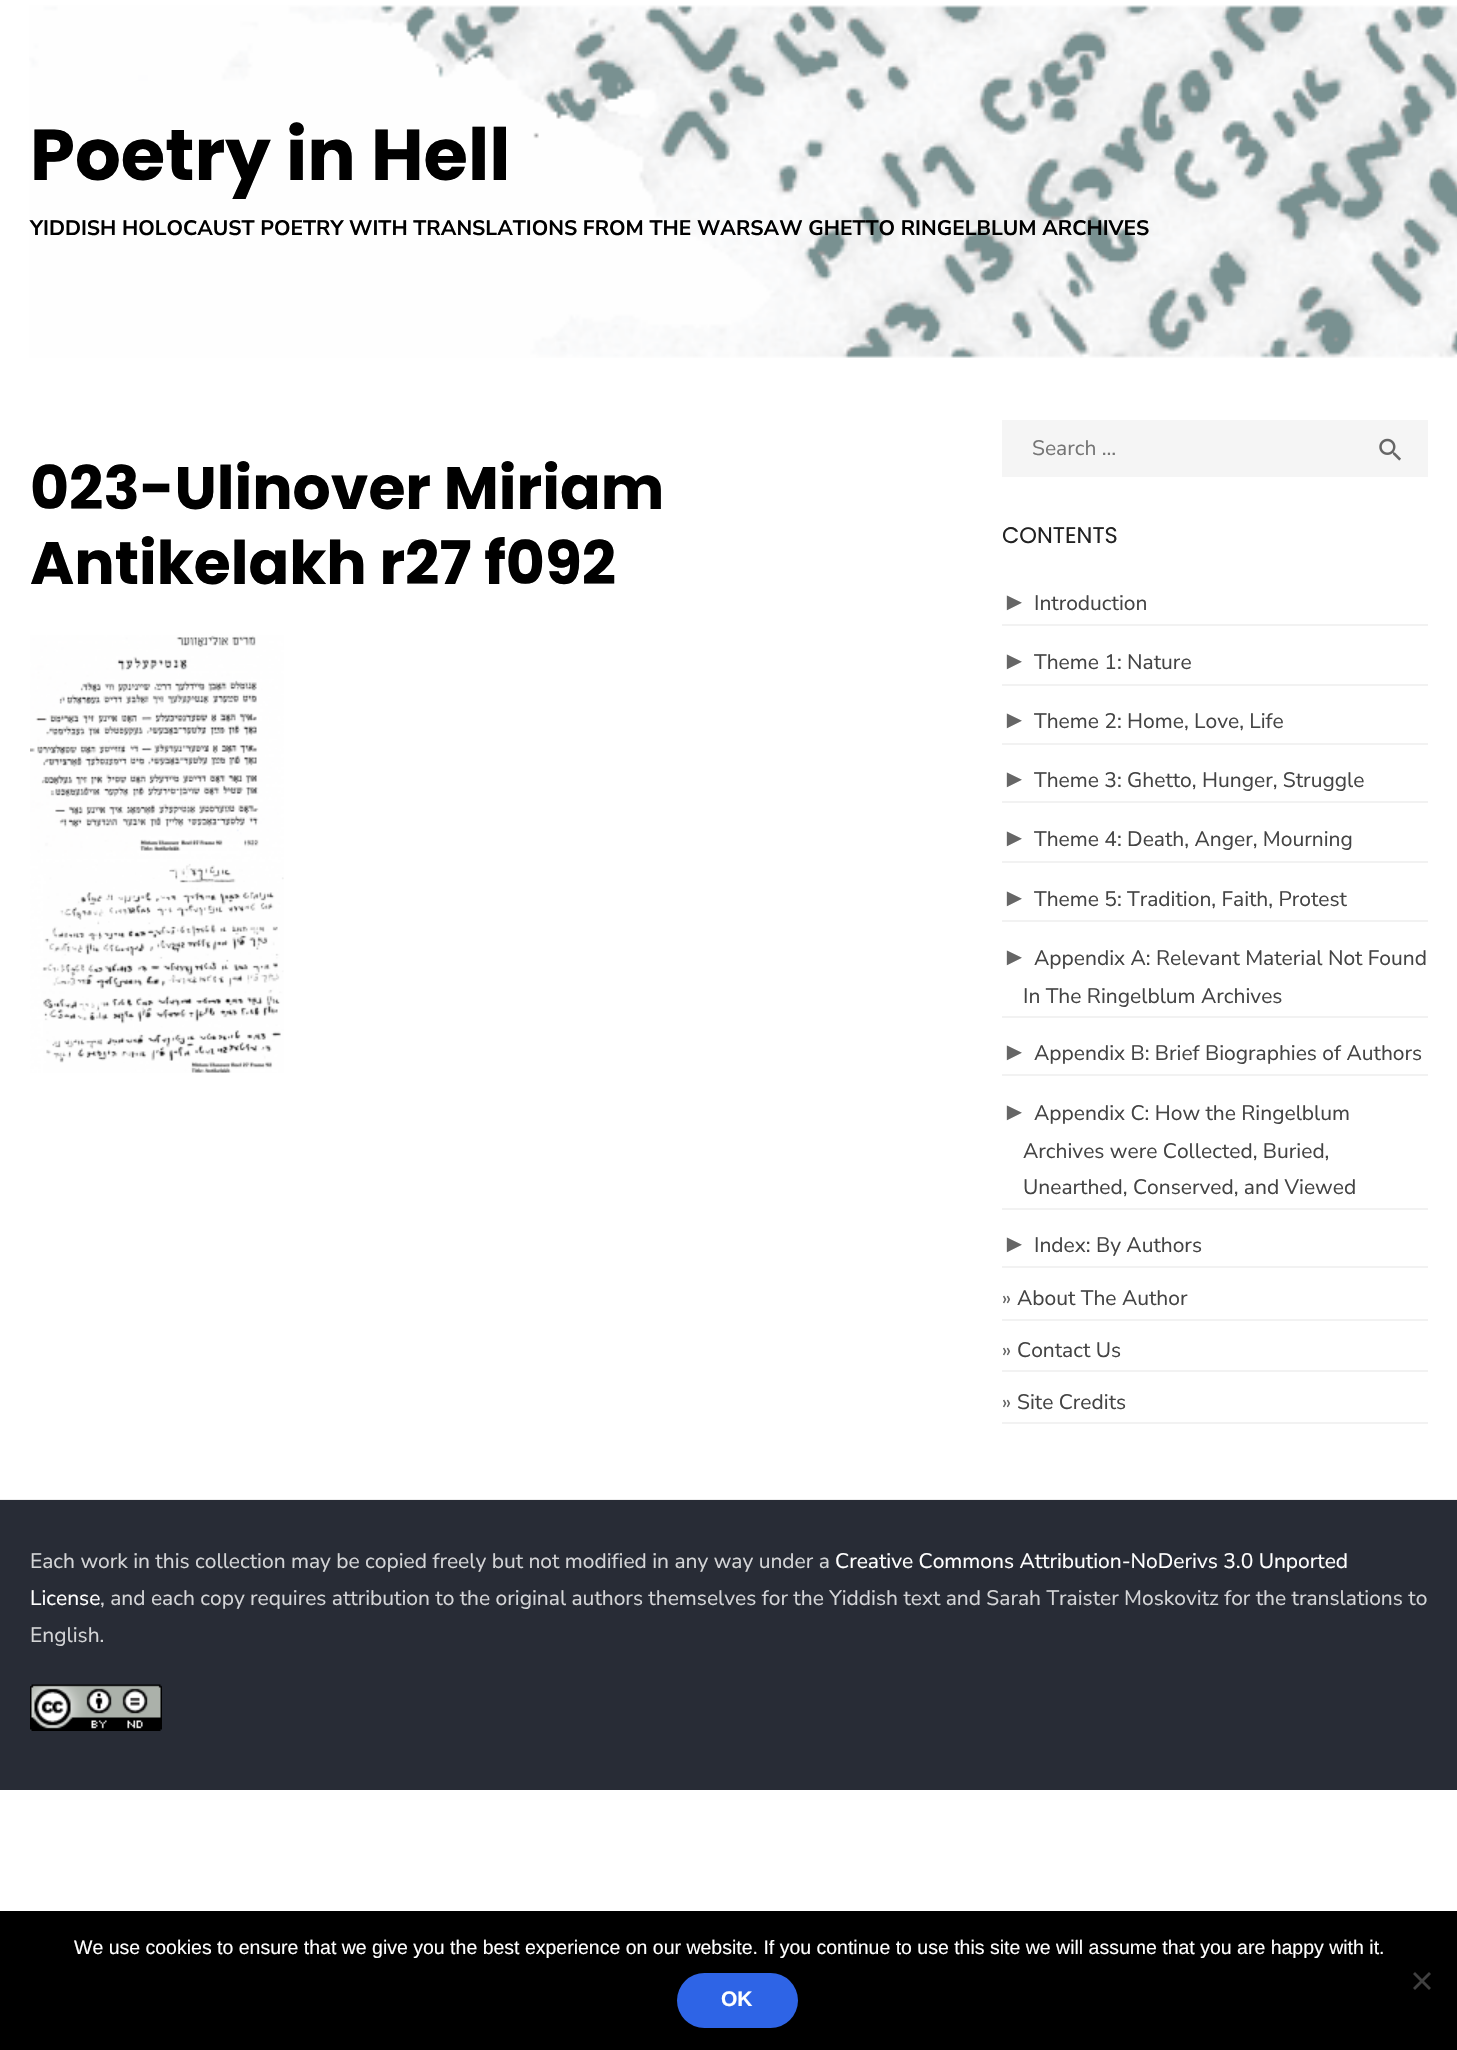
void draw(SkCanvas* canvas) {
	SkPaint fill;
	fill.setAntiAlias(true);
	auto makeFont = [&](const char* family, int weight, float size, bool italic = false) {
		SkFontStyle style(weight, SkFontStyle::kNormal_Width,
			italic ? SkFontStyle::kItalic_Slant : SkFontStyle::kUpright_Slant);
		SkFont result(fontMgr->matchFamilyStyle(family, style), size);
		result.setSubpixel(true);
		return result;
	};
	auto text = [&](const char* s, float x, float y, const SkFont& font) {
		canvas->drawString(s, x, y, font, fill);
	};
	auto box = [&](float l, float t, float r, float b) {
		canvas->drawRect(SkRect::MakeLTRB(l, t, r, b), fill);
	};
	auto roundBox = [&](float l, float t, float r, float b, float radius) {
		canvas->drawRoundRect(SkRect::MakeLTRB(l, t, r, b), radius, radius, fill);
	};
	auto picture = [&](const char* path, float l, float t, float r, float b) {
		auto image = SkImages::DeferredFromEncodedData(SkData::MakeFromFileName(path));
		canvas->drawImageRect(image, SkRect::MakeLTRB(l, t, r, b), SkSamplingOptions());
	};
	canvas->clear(0xFFFFFFFF);
	picture("image0.png", 29, 5, 1457, 358);
	picture("image1.png", 30, 635, 284, 1073);
	fill.setColor(0xFFF5F5F5);
	box(1002, 420, 1428, 477);
	picture("image2.png", 1379, 438, 1401, 461);
	fill.setColor(0xFFF2F2F2);
	box(1002, 624, 1428, 626);
	box(1002, 684, 1428, 686);
	box(1002, 743, 1428, 745);
	box(1002, 801, 1428, 803);
	box(1002, 861, 1428, 863);
	box(1002, 920, 1428, 922);
	box(1002, 1016, 1428, 1018);
	box(1002, 1074, 1428, 1076);
	box(1002, 1208, 1428, 1210);
	box(1002, 1266, 1428, 1268);
	box(1002, 1319, 1428, 1321);
	box(1002, 1370, 1428, 1372);
	box(1002, 1422, 1428, 1424);
	fill.setColor(0xFFEEEEEE);
	box(0, 1499, 1457, 1500);
	fill.setColor(0xFF282C36);
	box(0, 1500, 1457, 1790);
	picture("image3.png", 30, 1684, 162, 1731);
	fill.setColor(0xFF000000);
	box(0, 1911, 1457, 2050);
	fill.setColor(0xFF404040);
	canvas->drawPath(SkPathBuilder().moveTo(1429, 1972).lineTo(1431, 1974).lineTo(1415, 1990).lineTo(1413, 1988).close().detach(), fill);
	canvas->drawPath(SkPathBuilder().moveTo(1413, 1974).lineTo(1415, 1972).lineTo(1431, 1988).lineTo(1429, 1990).close().detach(), fill);
	fill.setColor(0xFF2E64E6);
	roundBox(677, 1973, 798, 2028, 27.5f);
	auto font1 = makeFont("Poppins", 700, 72);
	fill.setColor(0xFF000000);
	text("Poetry in Hell", 30, 180, font1);
	auto font2 = makeFont("Nunito Sans", 700, 21);
	text("YIDDISH HOLOCAUST POETRY WITH TRANSLATIONS FROM THE WARSAW GHETTO RINGELBLUM ARCHIVES", 30, 235, font2);
	auto font3 = makeFont("Poppins", 700, 60);
	text("023-Ulinover Miriam", 30, 509, font3);
	text("Antikelakh r27 f092", 30, 584, font3);
	auto font4 = makeFont("Nunito Sans", 400, 21);
	fill.setColor(0xFF757575);
	text("Search …", 1032, 455, font4);
	auto font5 = makeFont("Poppins", 400, 22.5f);
	fill.setColor(0xFF222222);
	text("CONTENTS", 1002, 543, font5);
	auto font6 = makeFont("Liberation Sans", 400, 25);
	fill.setColor(0xFF666666);
	text("►", 1002, 610, font6);
	fill.setColor(0xFF444444);
	text("Introduction", 1034, 610, font4);
	fill.setColor(0xFF666666);
	text("►", 1002, 669, font6);
	fill.setColor(0xFF444444);
	text("Theme 1: Nature", 1034, 669, font4);
	fill.setColor(0xFF666666);
	text("►", 1002, 728, font6);
	fill.setColor(0xFF444444);
	text("Theme 2: Home, Love, Life", 1034, 728, font4);
	fill.setColor(0xFF666666);
	text("►", 1002, 787, font6);
	fill.setColor(0xFF444444);
	text("Theme 3: Ghetto, Hunger, Struggle", 1034, 787, font4);
	fill.setColor(0xFF666666);
	text("►", 1002, 846, font6);
	fill.setColor(0xFF444444);
	text("Theme 4: Death, Anger, Mourning", 1034, 846, font4);
	fill.setColor(0xFF666666);
	text("►", 1002, 906, font6);
	fill.setColor(0xFF444444);
	text("Theme 5: Tradition, Faith, Protest", 1034, 906, font4);
	fill.setColor(0xFF666666);
	text("►", 1002, 965, font6);
	fill.setColor(0xFF444444);
	text("Appendix A: Relevant Material Not Found", 1034, 965, font4);
	text("In The Ringelblum Archives", 1023, 1003, font4);
	fill.setColor(0xFF666666);
	text("►", 1002, 1060, font6);
	fill.setColor(0xFF444444);
	text("Appendix B: Brief Biographies of Authors", 1034, 1060, font4);
	fill.setColor(0xFF666666);
	text("►", 1002, 1120, font6);
	fill.setColor(0xFF444444);
	text("Appendix C: How the Ringelblum", 1034, 1120, font4);
	text("Archives were Collected, Buried,", 1023, 1158, font4);
	text("Unearthed, Conserved, and Viewed", 1023, 1194, font4);
	fill.setColor(0xFF666666);
	text("►", 1002, 1252, font6);
	fill.setColor(0xFF444444);
	text("Index: By Authors", 1034, 1252, font4);
	fill.setColor(0xFF666666);
	text("»", 1002, 1305, font4);
	fill.setColor(0xFF444444);
	text("About The Author", 1017, 1305, font4);
	fill.setColor(0xFF666666);
	text("»", 1002, 1357, font4);
	fill.setColor(0xFF444444);
	text("Contact Us", 1017, 1357, font4);
	fill.setColor(0xFF666666);
	text("»", 1002, 1409, font4);
	fill.setColor(0xFF444444);
	text("Site Credits", 1017, 1409, font4);
	fill.setColor(0xFFD4D5D7);
	text("Each work in this collection may be copied freely but not modified in any way under a", 30, 1568, font4);
	fill.setColor(0xFFFFFFFF);
	text("Creative Commons Attribution-NoDerivs 3.0 Unported", 835, 1568, font4);
	text("License", 30, 1605, font4);
	fill.setColor(0xFFD4D5D7);
	text(", and each copy requires attribution to the original authors themselves for the Yiddish text and Sarah Traister Moskovitz for the translations to", 100, 1605, font4);
	text("English.", 30, 1642, font4);
	auto font7 = makeFont("Liberation Sans", 400, 19.5f);
	fill.setColor(0xFFFFFFFF);
	text("We use cookies to ensure that we give you the best experience on our website. If you continue to use this site we will assume that you are happy with it.", 74, 1954, font7);
	auto font8 = makeFont("Liberation Sans", 700, 21);
	text("OK", 721, 2006, font8);
}
